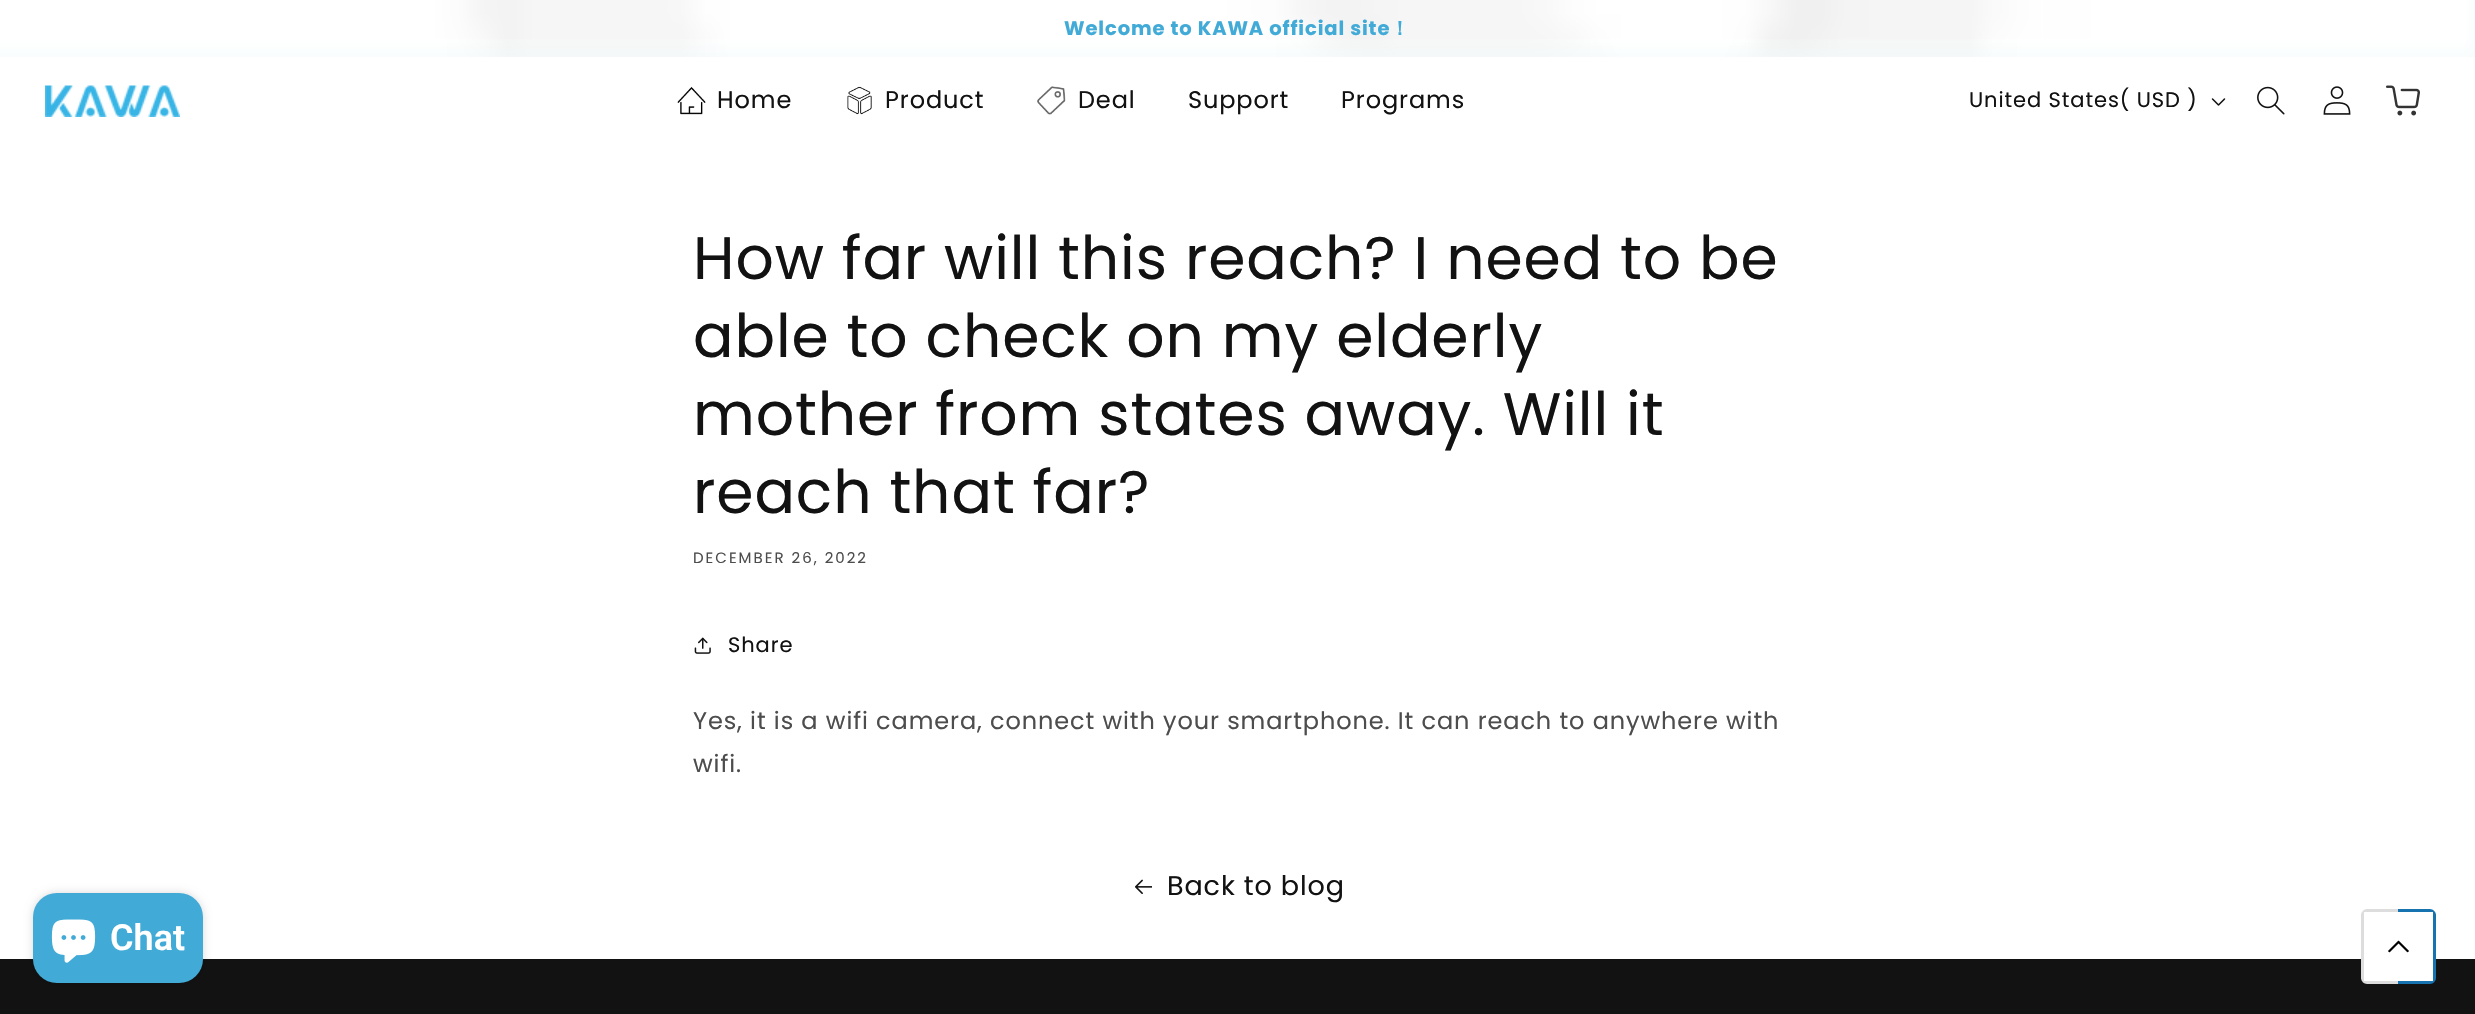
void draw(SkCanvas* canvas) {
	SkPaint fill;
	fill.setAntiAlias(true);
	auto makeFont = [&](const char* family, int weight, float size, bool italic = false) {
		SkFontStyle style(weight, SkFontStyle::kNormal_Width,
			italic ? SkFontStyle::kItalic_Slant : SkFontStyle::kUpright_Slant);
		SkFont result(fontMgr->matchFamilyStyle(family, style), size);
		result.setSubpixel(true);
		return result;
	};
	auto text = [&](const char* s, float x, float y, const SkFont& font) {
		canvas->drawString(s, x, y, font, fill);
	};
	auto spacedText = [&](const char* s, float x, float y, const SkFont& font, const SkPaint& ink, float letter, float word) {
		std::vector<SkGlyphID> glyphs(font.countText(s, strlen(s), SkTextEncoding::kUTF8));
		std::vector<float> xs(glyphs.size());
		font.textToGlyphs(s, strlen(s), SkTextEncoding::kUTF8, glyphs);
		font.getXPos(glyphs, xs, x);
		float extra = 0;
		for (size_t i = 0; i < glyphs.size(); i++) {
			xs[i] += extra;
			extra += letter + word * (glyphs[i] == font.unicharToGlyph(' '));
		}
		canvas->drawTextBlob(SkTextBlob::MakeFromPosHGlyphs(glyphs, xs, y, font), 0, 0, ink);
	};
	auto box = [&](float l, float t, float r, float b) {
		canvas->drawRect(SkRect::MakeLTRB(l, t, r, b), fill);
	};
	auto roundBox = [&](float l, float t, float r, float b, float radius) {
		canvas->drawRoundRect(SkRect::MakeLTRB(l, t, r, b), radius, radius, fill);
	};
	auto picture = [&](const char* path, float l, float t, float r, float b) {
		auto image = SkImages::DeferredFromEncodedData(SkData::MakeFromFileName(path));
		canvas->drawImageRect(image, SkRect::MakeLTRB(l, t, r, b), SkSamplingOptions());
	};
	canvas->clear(0xFFFFFFFF);
	fill.setColor(0xFFF4FBFC);
	box(0, 0, 2475, 57);
	picture("image0.png", 0, 0, 2475, 57);
	picture("image1.png", 45, 85, 180, 117);
	picture("image2.png", 677, 86, 706, 115);
	picture("image3.png", 847, 86, 872, 115);
	picture("image4.png", 1037, 86, 1066, 115);
	picture("image5.png", 2211, 98, 2226, 106);
	picture("image6.png", 2257, 86, 2285, 115);
	picture("image7.png", 2323, 86, 2351, 115);
	picture("image8.png", 2386, 85, 2420, 116);
	picture("image9.png", 694, 637, 711, 654);
	picture("image10.png", 1135, 879, 1152, 894);
	fill.setColor(0xFF121212);
	box(0, 959, 2475, 1014);
	fill.setColor(0x26000000);
	fill.setMaskFilter(SkMaskFilter::MakeBlur(kNormal_SkBlurStyle, 4));
	canvas->drawRoundRect(SkRect::MakeLTRB(33, 893, 203, 983), 24, 24, fill);
	fill.setMaskFilter(nullptr);
	fill.setColor(0xFF41AAD7);
	roundBox(33, 893, 203, 983, 24);
	picture("image11.png", 51, 919, 96, 963);
	fill.setColor(0xFF1773B0);
	canvas->drawPath(SkPathBuilder().moveTo(2398, 909).lineTo(2398, 984).lineTo(2430, 984).cubicTo(2433, 984, 2436, 981, 2436, 978).lineTo(2436, 915).cubicTo(2436, 912, 2433, 909, 2430, 909).close().detach(), fill);
	fill.setColor(0xFFDDDDDD);
	canvas->drawPath(SkPathBuilder().moveTo(2367, 909).cubicTo(2364, 909, 2361, 912, 2361, 915).lineTo(2361, 978).cubicTo(2361, 981, 2364, 984, 2367, 984).lineTo(2398, 984).lineTo(2398, 909).close().detach(), fill);
	fill.setColor(0xFFFFFFFF);
	box(2364, 912, 2433, 981);
	picture("image12.png", 2388, 940, 2409, 953);
	picture("image13.png", 2388, 940, 2409, 953);
	auto font1 = makeFont("Poppins", 700, 19.5f);
	fill.setColor(0xFF41AAD7);
	spacedText("Welcome to KAWA official site", 1064, 35, font1, fill, 0.9f, 0);
	auto font2 = makeFont("WenQuanYi Zen Hei", 700, 19.5f);
	spacedText("！", 1390, 35, font2, fill, 0.9f, 0);
	auto font3 = makeFont("Poppins", 400, 24);
	fill.setColor(0xFF121212);
	spacedText("Home", 717, 108, font3, fill, 0.9f, 0);
	spacedText("Product", 885, 108, font3, fill, 0.9f, 0);
	spacedText("Deal", 1078, 108, font3, fill, 0.9f, 0);
	spacedText("Support", 1188, 108, font3, fill, 0.9f, 0);
	spacedText("Programs", 1341, 108, font3, fill, 0.9f, 0);
	auto font4 = makeFont("Poppins", 400, 21);
	spacedText("United States( USD )", 1969, 107, font4, fill, 0.9f, 0);
	auto font5 = makeFont("Poppins", 400, 60);
	spacedText("How far will this reach? I need to be", 693, 279, font5, fill, 0.9f, 0);
	spacedText("able to check on my elderly", 693, 357, font5, fill, 0.9f, 0);
	spacedText("mother from states away. Will it", 693, 435, font5, fill, 0.9f, 0);
	spacedText("reach that far?", 693, 513, font5, fill, 0.9f, 0);
	auto font6 = makeFont("Poppins", 400, 15);
	fill.setColor(0xFF4D4D4D);
	spacedText("DECEMBER 26, 2022", 693, 563, font6, fill, 2, 0);
	fill.setColor(0xFF121212);
	spacedText("Share", 728, 652, font4, fill, 0.9f, 0);
	fill.setColor(0xFF4D4D4D);
	spacedText("Yes, it is a wifi camera, connect with your smartphone. It can reach to anywhere with", 693, 729, font3, fill, 0.9f, 0);
	spacedText("wifi.", 693, 772, font3, fill, 0.9f, 0);
	auto font7 = makeFont("Poppins", 400, 27);
	fill.setColor(0xFF121212);
	spacedText("Back to blog", 1167, 895, font7, fill, 0.9f, 0);
	auto font8 = makeFont("Roboto", 600, 36);
	fill.setColor(0xFFFFFFFF);
	text("Chat", 110, 950, font8);
}
